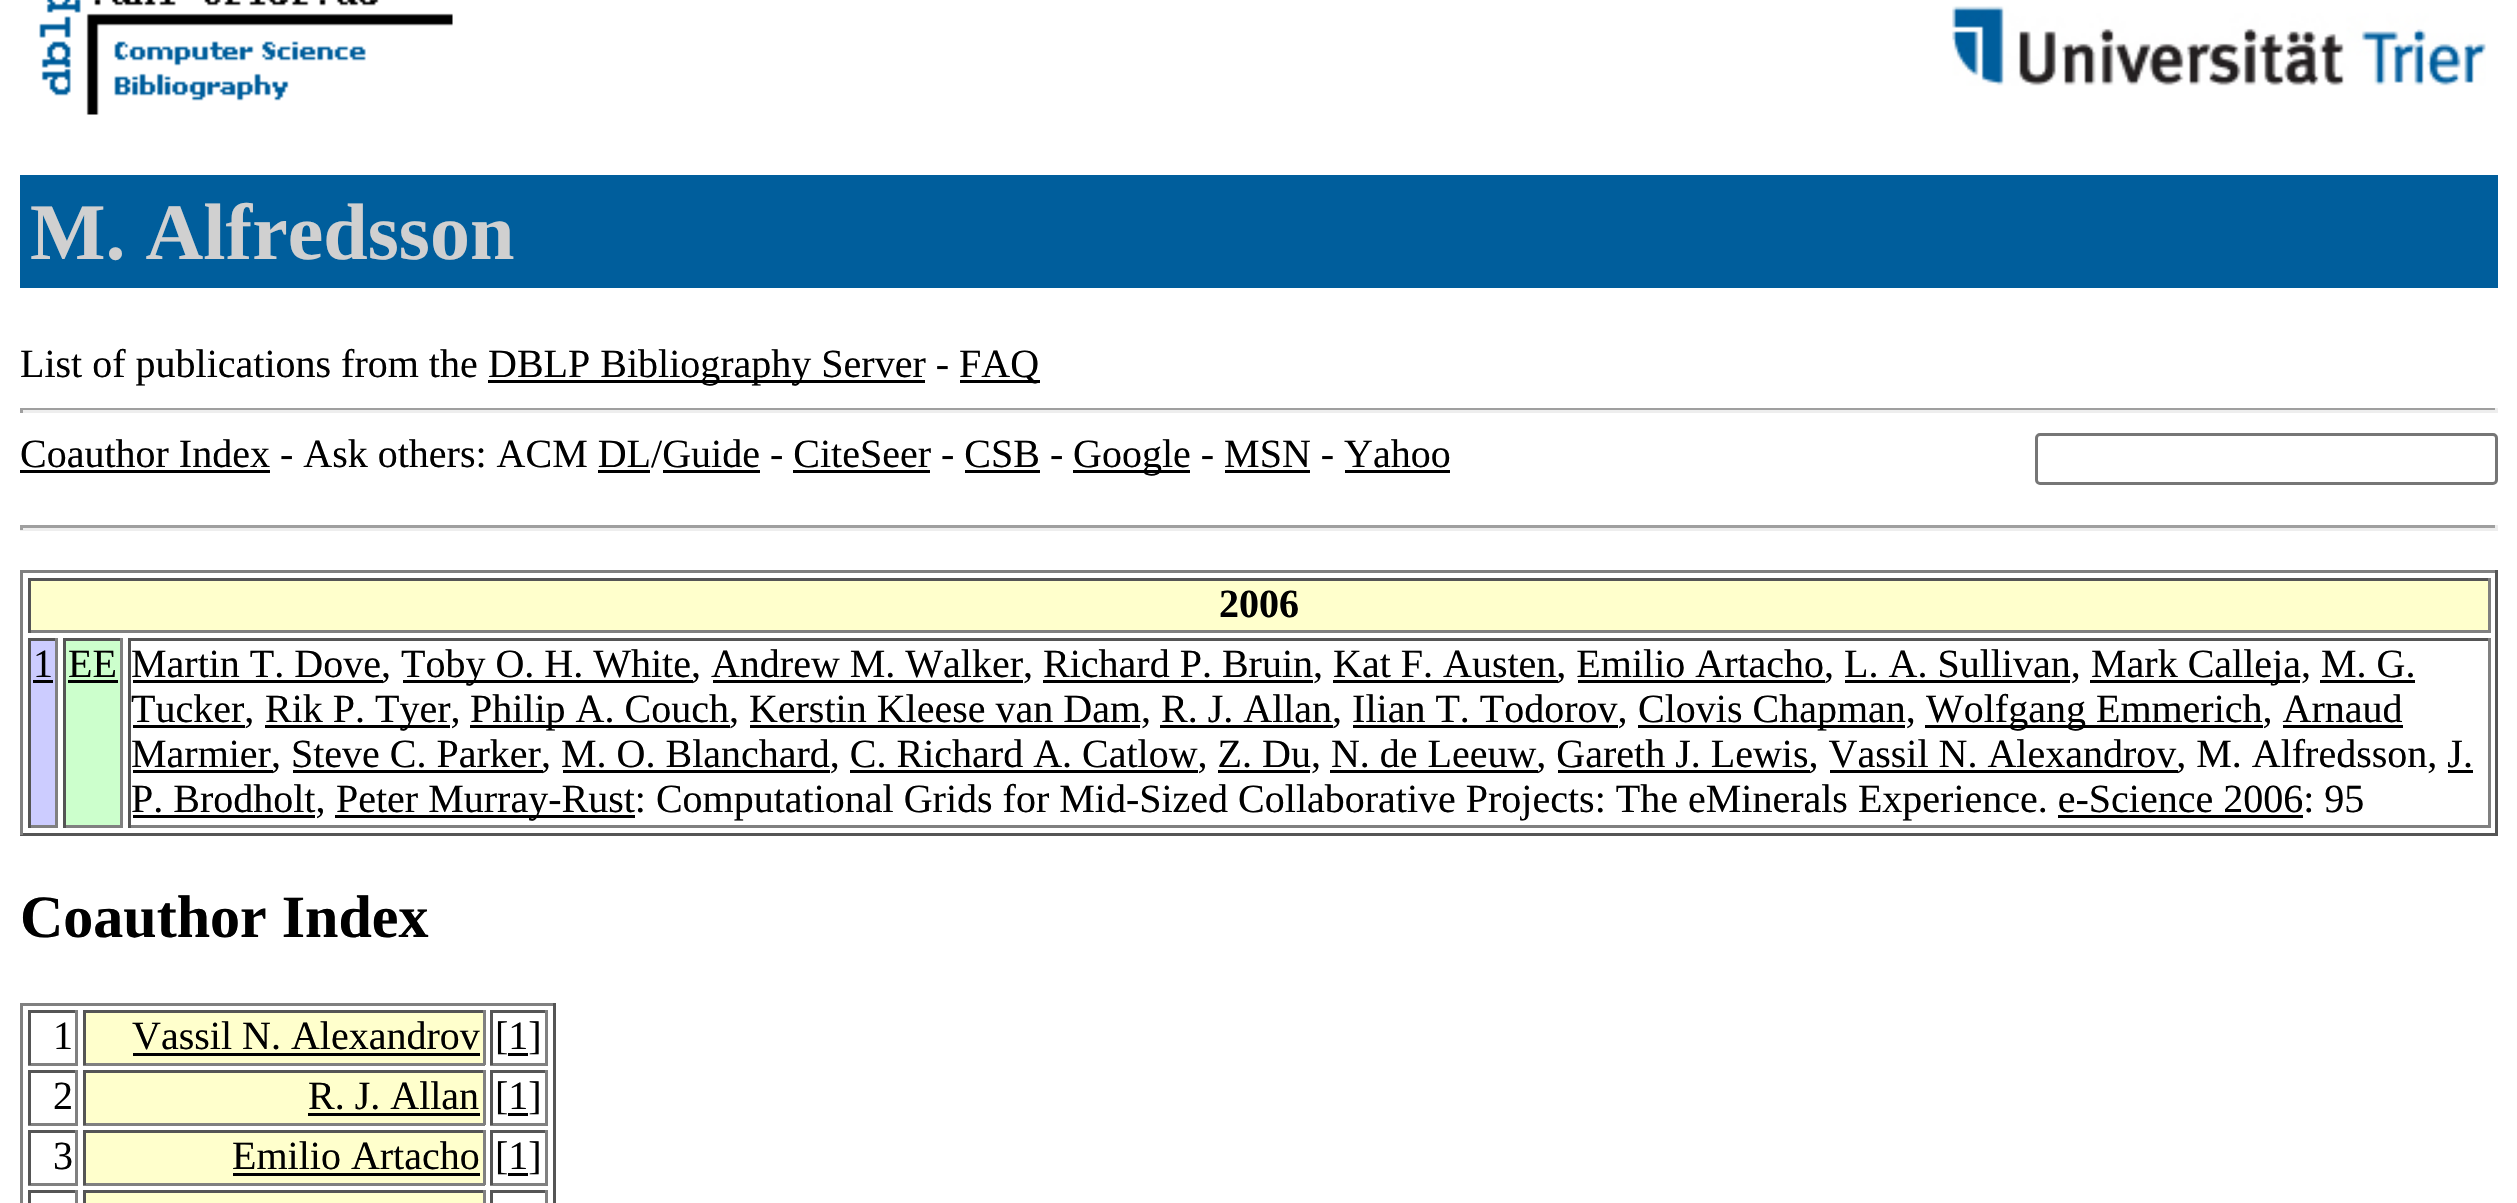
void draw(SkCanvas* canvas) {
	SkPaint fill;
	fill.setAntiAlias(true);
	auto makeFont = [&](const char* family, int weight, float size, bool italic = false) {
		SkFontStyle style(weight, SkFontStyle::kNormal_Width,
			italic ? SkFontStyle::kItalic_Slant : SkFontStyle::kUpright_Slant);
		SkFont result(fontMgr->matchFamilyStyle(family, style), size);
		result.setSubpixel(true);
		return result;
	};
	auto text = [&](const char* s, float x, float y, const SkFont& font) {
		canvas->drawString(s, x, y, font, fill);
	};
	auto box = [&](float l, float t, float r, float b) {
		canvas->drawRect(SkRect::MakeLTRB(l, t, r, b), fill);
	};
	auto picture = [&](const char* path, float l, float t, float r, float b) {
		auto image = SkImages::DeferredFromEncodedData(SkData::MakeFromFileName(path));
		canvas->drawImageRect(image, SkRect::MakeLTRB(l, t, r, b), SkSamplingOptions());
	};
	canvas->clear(0xFFFFFFFF);
	picture("image0.png", 39, 0, 453, 115);
	picture("image1.png", 1952, 5, 2486, 86);
	fill.setColor(0xFF005E9C);
	box(20, 175, 2498, 288);
	fill.setColor(0xFF000000);
	box(488, 380, 925, 383);
	box(960, 380, 1040, 383);
	fill.setColor(0xFF9F9F9F);
	box(20, 408, 2498, 410);
	fill.setColor(0xFFEEEEEE);
	box(2495, 408, 2498, 413);
	box(20, 410, 2498, 413);
	fill.setColor(0xFF9F9F9F);
	box(20, 408, 23, 413);
	fill.setColor(0xFF000000);
	box(20, 470, 270, 473);
	box(1073, 470, 1190, 473);
	fill.setStyle(SkPaint::kStroke_Style);
	fill.setStrokeWidth(3);
	fill.setColor(0xFF767676);
	canvas->drawRoundRect(SkRect::MakeLTRB(2036.5f, 434.5f, 2496.5f, 483.5f), 3.5f, 3.5f, fill);
	fill.setStyle(SkPaint::kFill_Style);
	fill.setColor(0xFF000000);
	box(598, 470, 650, 473);
	box(663, 470, 760, 473);
	box(793, 470, 930, 473);
	box(965, 470, 1040, 473);
	box(1225, 470, 1310, 473);
	box(1345, 470, 1450, 473);
	fill.setColor(0xFF9F9F9F);
	box(20, 525, 2498, 528);
	fill.setColor(0xFFEEEEEE);
	box(2495, 525, 2498, 530);
	box(20, 528, 2498, 531);
	fill.setColor(0xFF9F9F9F);
	box(20, 525, 23, 530);
	fill.setColor(0xFF808080);
	box(20, 570, 2498, 573);
	fill.setColor(0xFF555555);
	box(2495, 570, 2498, 835);
	box(20, 833, 2498, 836);
	fill.setColor(0xFF808080);
	box(20, 570, 23, 835);
	fill.setColor(0xFFFFFFCC);
	box(31, 581, 2488, 630);
	fill.setColor(0xFF555555);
	box(28, 578, 2490, 581);
	fill.setColor(0xFF808080);
	box(2488, 578, 2491, 633);
	box(28, 630, 2490, 633);
	fill.setColor(0xFF555555);
	box(28, 578, 31, 633);
	fill.setColor(0xFFCCCCFF);
	box(31, 641, 55, 825);
	fill.setColor(0xFF555555);
	box(28, 638, 58, 641);
	fill.setColor(0xFF808080);
	box(55, 638, 58, 828);
	box(28, 825, 58, 828);
	fill.setColor(0xFF555555);
	box(28, 638, 31, 828);
	fill.setColor(0xFF000000);
	box(33, 680, 53, 683);
	fill.setColor(0xFFCCFFCC);
	box(66, 641, 120, 825);
	fill.setColor(0xFF555555);
	box(63, 638, 123, 641);
	fill.setColor(0xFF808080);
	box(120, 638, 123, 828);
	box(63, 825, 123, 828);
	fill.setColor(0xFF555555);
	box(63, 638, 66, 828);
	fill.setColor(0xFF000000);
	box(68, 680, 118, 683);
	fill.setColor(0xFF555555);
	box(128, 638, 2490, 641);
	fill.setColor(0xFF808080);
	box(2488, 638, 2491, 828);
	box(128, 825, 2490, 828);
	fill.setColor(0xFF555555);
	box(128, 638, 131, 828);
	fill.setColor(0xFF000000);
	box(133, 680, 383, 683);
	box(403, 680, 693, 683);
	box(2090, 680, 2300, 683);
	box(713, 680, 1023, 683);
	box(1043, 680, 1313, 683);
	box(1333, 680, 1558, 683);
	box(1578, 680, 1825, 683);
	box(1845, 680, 2070, 683);
	box(2320, 680, 2415, 683);
	box(133, 725, 245, 728);
	box(265, 725, 450, 728);
	box(470, 725, 730, 728);
	box(1638, 725, 1905, 728);
	box(1925, 725, 2263, 728);
	box(750, 725, 1140, 728);
	box(1160, 725, 1333, 728);
	box(1353, 725, 1618, 728);
	box(2283, 725, 2403, 728);
	box(133, 770, 273, 773);
	box(293, 770, 543, 773);
	box(563, 770, 830, 773);
	box(850, 770, 1198, 773);
	box(1218, 770, 1310, 773);
	box(1330, 770, 1538, 773);
	box(1558, 770, 1810, 773);
	box(1830, 770, 2178, 773);
	box(2448, 770, 2473, 773);
	box(133, 815, 315, 818);
	box(335, 815, 635, 818);
	box(2058, 815, 2303, 818);
	fill.setColor(0xFF808080);
	box(20, 1003, 555, 1006);
	fill.setColor(0xFF555555);
	box(553, 1003, 556, 1203);
	fill.setColor(0xFF808080);
	box(20, 1003, 23, 1203);
	fill.setColor(0xFF555555);
	box(28, 1010, 78, 1013);
	fill.setColor(0xFF808080);
	box(75, 1010, 78, 1065);
	box(28, 1063, 78, 1066);
	fill.setColor(0xFF555555);
	box(28, 1010, 31, 1065);
	fill.setColor(0xFFFFFFCC);
	box(86, 1013, 483, 1063);
	fill.setColor(0xFF555555);
	box(83, 1010, 485, 1013);
	fill.setColor(0xFF808080);
	box(483, 1010, 486, 1065);
	box(83, 1063, 485, 1066);
	fill.setColor(0xFF555555);
	box(83, 1010, 86, 1065);
	fill.setColor(0xFF000000);
	box(133, 1053, 480, 1056);
	fill.setColor(0xFF555555);
	box(490, 1010, 548, 1013);
	fill.setColor(0xFF808080);
	box(545, 1010, 548, 1065);
	box(490, 1063, 548, 1066);
	fill.setColor(0xFF555555);
	box(490, 1010, 493, 1065);
	fill.setColor(0xFF000000);
	box(508, 1053, 528, 1056);
	fill.setColor(0xFF555555);
	box(28, 1070, 78, 1073);
	fill.setColor(0xFF808080);
	box(75, 1070, 78, 1125);
	box(28, 1123, 78, 1126);
	fill.setColor(0xFF555555);
	box(28, 1070, 31, 1125);
	fill.setColor(0xFFFFFFCC);
	box(86, 1073, 483, 1123);
	fill.setColor(0xFF555555);
	box(83, 1070, 485, 1073);
	fill.setColor(0xFF808080);
	box(483, 1070, 486, 1125);
	box(83, 1123, 485, 1126);
	fill.setColor(0xFF555555);
	box(83, 1070, 86, 1125);
	fill.setColor(0xFF000000);
	box(308, 1113, 480, 1116);
	fill.setColor(0xFF555555);
	box(490, 1070, 548, 1073);
	fill.setColor(0xFF808080);
	box(545, 1070, 548, 1125);
	box(490, 1123, 548, 1126);
	fill.setColor(0xFF555555);
	box(490, 1070, 493, 1125);
	fill.setColor(0xFF000000);
	box(508, 1113, 528, 1116);
	fill.setColor(0xFF555555);
	box(28, 1130, 78, 1133);
	fill.setColor(0xFF808080);
	box(75, 1130, 78, 1185);
	box(28, 1183, 78, 1186);
	fill.setColor(0xFF555555);
	box(28, 1130, 31, 1185);
	fill.setColor(0xFFFFFFCC);
	box(86, 1133, 483, 1183);
	fill.setColor(0xFF555555);
	box(83, 1130, 485, 1133);
	fill.setColor(0xFF808080);
	box(483, 1130, 486, 1185);
	box(83, 1183, 485, 1186);
	fill.setColor(0xFF555555);
	box(83, 1130, 86, 1185);
	fill.setColor(0xFF000000);
	box(233, 1173, 480, 1176);
	fill.setColor(0xFF555555);
	box(490, 1130, 548, 1133);
	fill.setColor(0xFF808080);
	box(545, 1130, 548, 1185);
	box(490, 1183, 548, 1186);
	fill.setColor(0xFF555555);
	box(490, 1130, 493, 1185);
	fill.setColor(0xFF000000);
	box(508, 1173, 528, 1176);
	fill.setColor(0xFF555555);
	box(28, 1190, 78, 1193);
	fill.setColor(0xFF808080);
	box(75, 1190, 78, 1203);
	fill.setColor(0xFF555555);
	box(28, 1190, 31, 1203);
	fill.setColor(0xFFFFFFCC);
	box(86, 1193, 483, 1203);
	fill.setColor(0xFF555555);
	box(83, 1190, 485, 1193);
	fill.setColor(0xFF808080);
	box(483, 1190, 486, 1203);
	fill.setColor(0xFF555555);
	box(83, 1190, 86, 1203);
	box(490, 1190, 548, 1193);
	fill.setColor(0xFF808080);
	box(545, 1190, 548, 1203);
	fill.setColor(0xFF555555);
	box(490, 1190, 493, 1203);
	auto font1 = makeFont("Liberation Serif", 700, 80);
	fill.setColor(0xFFD0D0D0);
	text("M. Alfredsson", 30, 259, font1);
	auto font2 = makeFont("Liberation Serif", 400, 40);
	fill.setColor(0xFF000000);
	text("List of publications from the", 20, 377, font2);
	text("DBLP Bibliography Server -", 488, 377, font2);
	text("FAQ", 959, 377, font2);
	text("Coauthor Index - Ask others: ACM DL/Guide - CiteSeer - CSB -", 20, 467, font2);
	text("Google - MSN - Yahoo", 1073, 467, font2);
	auto font3 = makeFont("Liberation Serif", 700, 40);
	text("2006", 1219, 617, font3);
	text("1", 33, 677, font2);
	text("EE", 68, 677, font2);
	text("Martin T. Dove,", 131, 677, font2);
	text("Toby O. H. White, Andrew M. Walker, Richard P. Bruin, Kat F. Austen, Emilio Artacho, L. A. Sullivan,", 401, 677, font2);
	text("Mark Calleja, M. G.", 2091, 677, font2);
	text("Tucker,", 131, 722, font2);
	text("Rik P. Tyer,", 265, 722, font2);
	text("Philip A. Couch, Kerstin Kleese van Dam, R. J. Allan, Ilian T. Todorov,", 470, 722, font2);
	text("Clovis Chapman,", 1638, 722, font2);
	text("Wolfgang Emmerich, Arnaud", 1926, 722, font2);
	text("Marmier, Steve C. Parker", 131, 767, font2);
	text(", M. O. Blanchard, C. Richard A. Catlow, Z. Du, N. de Leeuw, Gareth J. Lewis, Vassil N. Alexandrov, M. Alfredsson, J.", 541, 767, font2);
	text("P. Brodholt,", 131, 812, font2);
	text("Peter Murray-Rust: Computational Grids for Mid-Sized Collaborative Projects: The eMinerals Experience. e-Science 2006: 95", 336, 812, font2);
	auto font4 = makeFont("Liberation Serif", 700, 60);
	text("Coauthor Index", 20, 937, font4);
	text("1", 53, 1049, font2);
	text("Vassil N. Alexandrov", 132, 1049, font2);
	text("[1]", 495, 1049, font2);
	text("2", 53, 1109, font2);
	text("R. J. Allan", 308, 1109, font2);
	text("[1]", 495, 1109, font2);
	text("3", 53, 1169, font2);
	text("Emilio Artacho", 232, 1169, font2);
	text("[1]", 495, 1169, font2);
}
